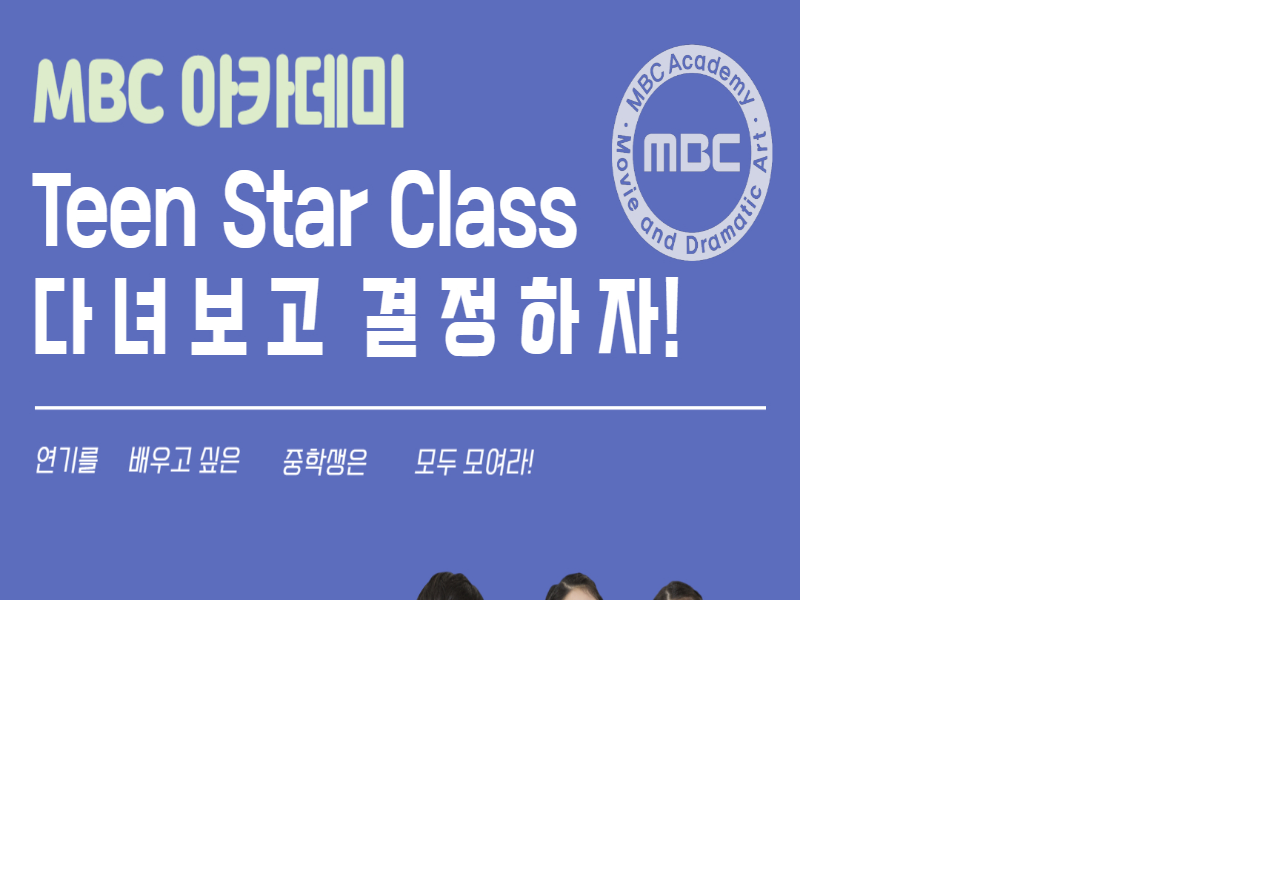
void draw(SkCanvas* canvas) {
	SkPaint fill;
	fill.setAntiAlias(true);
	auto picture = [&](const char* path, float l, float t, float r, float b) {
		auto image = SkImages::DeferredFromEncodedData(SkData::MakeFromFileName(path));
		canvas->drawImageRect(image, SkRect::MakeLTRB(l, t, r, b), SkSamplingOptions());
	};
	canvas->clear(0xFFFFFFFF);
	picture("image0.png", 0, 0, 800, 600);
}
